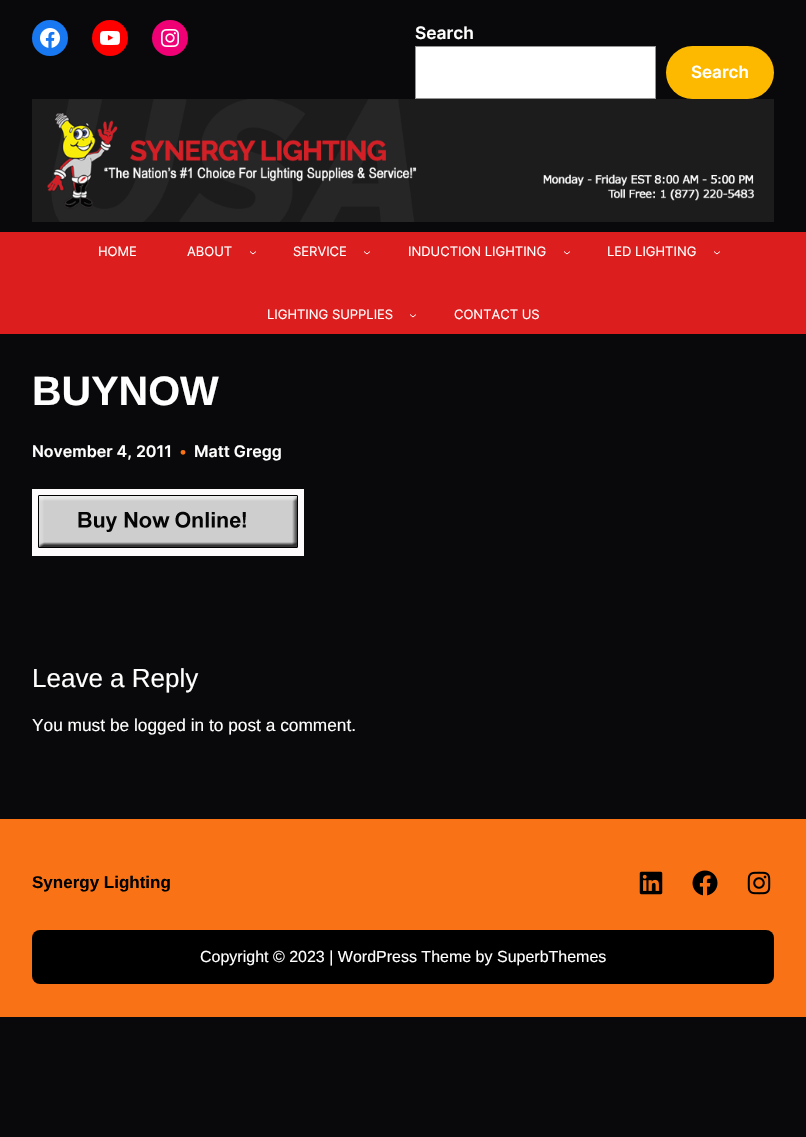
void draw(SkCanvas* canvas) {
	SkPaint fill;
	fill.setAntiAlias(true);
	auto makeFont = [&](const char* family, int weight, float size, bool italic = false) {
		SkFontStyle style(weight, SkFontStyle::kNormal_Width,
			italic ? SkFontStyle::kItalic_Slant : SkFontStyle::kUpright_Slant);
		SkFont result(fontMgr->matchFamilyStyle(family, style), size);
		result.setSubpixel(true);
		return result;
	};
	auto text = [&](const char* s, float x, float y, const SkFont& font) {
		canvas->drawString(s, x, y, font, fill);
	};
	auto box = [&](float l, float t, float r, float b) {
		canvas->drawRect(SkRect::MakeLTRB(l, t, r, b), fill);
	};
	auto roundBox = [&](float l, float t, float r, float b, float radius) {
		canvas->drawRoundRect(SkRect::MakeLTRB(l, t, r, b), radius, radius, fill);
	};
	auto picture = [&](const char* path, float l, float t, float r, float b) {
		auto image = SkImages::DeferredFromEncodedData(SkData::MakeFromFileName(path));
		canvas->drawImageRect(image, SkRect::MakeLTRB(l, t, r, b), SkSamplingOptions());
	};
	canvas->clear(0xFF09090B);
	fill.setColor(0xFF1778F2);
	canvas->drawCircle(50, 38, 18, fill);
	picture("image0.png", 40, 28, 60, 48);
	fill.setColor(0xFFFF0000);
	canvas->drawCircle(110, 38, 18, fill);
	picture("image1.png", 100, 31, 120, 45);
	fill.setColor(0xFFF00075);
	canvas->drawCircle(170, 38, 18, fill);
	picture("image2.png", 161, 29, 179, 47);
	fill.setColor(0xFFFFFFFF);
	canvas->drawRect(SkRect::MakeLTRB(415.5f, 46.5f, 655.5f, 98.5f), fill);
	fill.setStyle(SkPaint::kStroke_Style);
	fill.setStrokeWidth(1);
	fill.setColor(0xFF949494);
	canvas->drawRect(SkRect::MakeLTRB(415.5f, 46.5f, 655.5f, 98.5f), fill);
	fill.setStyle(SkPaint::kFill_Style);
	fill.setColor(0xFFFCB900);
	roundBox(666, 46, 774, 99, 26.5f);
	picture("image3.png", 32, 99, 774, 222);
	fill.setColor(0xFFDD1E1E);
	box(0, 232, 806, 334);
	fill.setStyle(SkPaint::kStroke_Style);
	fill.setColor(0xFFFFFFFF);
	canvas->drawPath(SkPathBuilder().moveTo(250, 251.5f).lineTo(253, 254).lineTo(256, 251.5f).detach(), fill);
	canvas->drawPath(SkPathBuilder().moveTo(364, 251.5f).lineTo(367, 254).lineTo(370, 251.5f).detach(), fill);
	canvas->drawPath(SkPathBuilder().moveTo(564, 251.5f).lineTo(567, 254).lineTo(570, 251.5f).detach(), fill);
	canvas->drawPath(SkPathBuilder().moveTo(714, 251.5f).lineTo(717, 254).lineTo(720, 251.5f).detach(), fill);
	canvas->drawPath(SkPathBuilder().moveTo(410, 314.5f).lineTo(413, 317).lineTo(416, 314.5f).detach(), fill);
	picture("image4.png", 32, 489, 304, 556);
	fill.setStyle(SkPaint::kFill_Style);
	fill.setColor(0xFFF97316);
	box(0, 819, 806, 1017);
	picture("image5.png", 639, 871, 663, 895);
	picture("image6.png", 692, 870, 718, 896);
	picture("image7.png", 747, 871, 771, 895);
	fill.setColor(0xFF000000);
	roundBox(32, 930, 774, 984, 8);
	auto font1 = makeFont("Inter", 600, 17.3f);
	fill.setColor(0xFFFFFFFF);
	text("Search", 415, 39, font1);
	auto font2 = makeFont("Inter", 600, 17);
	text("Search", 691, 78, font2);
	auto font3 = makeFont("Inter", 400, 13);
	text("HOME", 98, 256, font3);
	text("ABOUT", 187, 256, font3);
	text("SERVICE", 293, 256, font3);
	text("INDUCTION LIGHTING", 408, 256, font3);
	text("LED LIGHTING", 607, 256, font3);
	text("LIGHTING SUPPLIES", 267, 319, font3);
	text("CONTACT US", 454, 319, font3);
	auto font4 = makeFont("Liberation Sans", 700, 41);
	text("BUYNOW", 32, 405, font4);
	auto font5 = makeFont("Inter", 600, 16);
	text("November 4, 2011", 32, 457, font5);
	auto font6 = makeFont("Liberation Sans", 400, 17.3f);
	fill.setColor(0xFFF97316);
	text("•", 180, 458, font6);
	fill.setColor(0xFFFFFFFF);
	text("Matt Gregg", 194, 457, font5);
	auto font7 = makeFont("Liberation Sans", 400, 26);
	text("Leave a Reply", 32, 687, font7);
	text("You must be logged in to post a comment.", 32, 731, font6);
	auto font8 = makeFont("Liberation Sans", 700, 17);
	fill.setColor(0xFF000000);
	text("Synergy Lighting", 32, 888, font8);
	auto font9 = makeFont("Liberation Sans", 400, 16);
	fill.setColor(0xFFFFFFFF);
	text("Copyright © 2023 | WordPress Theme by SuperbThemes", 200, 962, font9);
}
